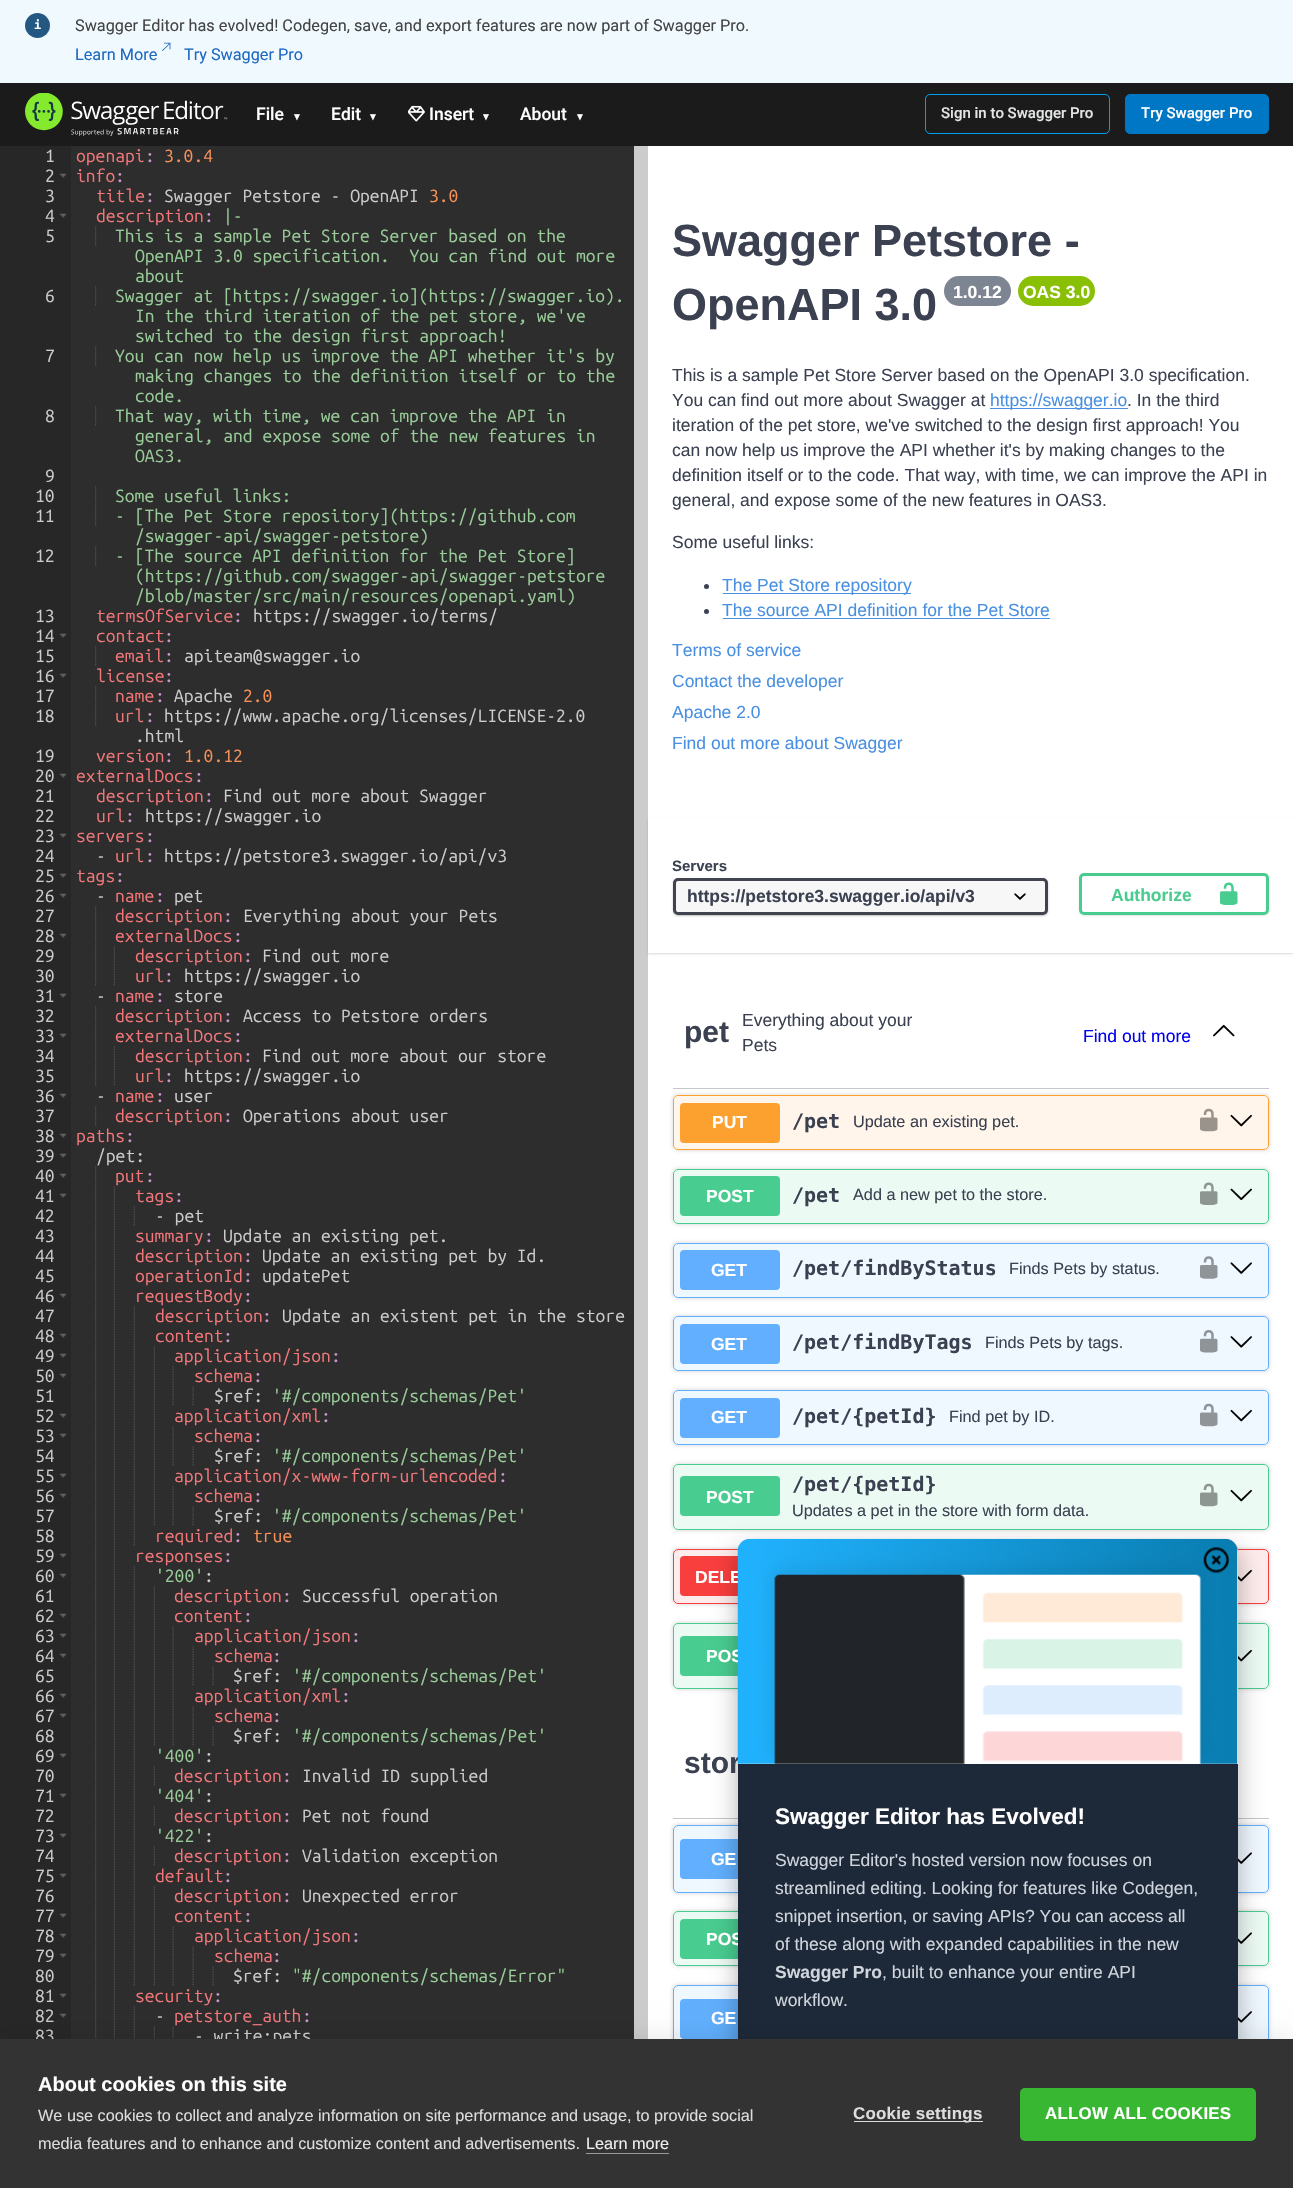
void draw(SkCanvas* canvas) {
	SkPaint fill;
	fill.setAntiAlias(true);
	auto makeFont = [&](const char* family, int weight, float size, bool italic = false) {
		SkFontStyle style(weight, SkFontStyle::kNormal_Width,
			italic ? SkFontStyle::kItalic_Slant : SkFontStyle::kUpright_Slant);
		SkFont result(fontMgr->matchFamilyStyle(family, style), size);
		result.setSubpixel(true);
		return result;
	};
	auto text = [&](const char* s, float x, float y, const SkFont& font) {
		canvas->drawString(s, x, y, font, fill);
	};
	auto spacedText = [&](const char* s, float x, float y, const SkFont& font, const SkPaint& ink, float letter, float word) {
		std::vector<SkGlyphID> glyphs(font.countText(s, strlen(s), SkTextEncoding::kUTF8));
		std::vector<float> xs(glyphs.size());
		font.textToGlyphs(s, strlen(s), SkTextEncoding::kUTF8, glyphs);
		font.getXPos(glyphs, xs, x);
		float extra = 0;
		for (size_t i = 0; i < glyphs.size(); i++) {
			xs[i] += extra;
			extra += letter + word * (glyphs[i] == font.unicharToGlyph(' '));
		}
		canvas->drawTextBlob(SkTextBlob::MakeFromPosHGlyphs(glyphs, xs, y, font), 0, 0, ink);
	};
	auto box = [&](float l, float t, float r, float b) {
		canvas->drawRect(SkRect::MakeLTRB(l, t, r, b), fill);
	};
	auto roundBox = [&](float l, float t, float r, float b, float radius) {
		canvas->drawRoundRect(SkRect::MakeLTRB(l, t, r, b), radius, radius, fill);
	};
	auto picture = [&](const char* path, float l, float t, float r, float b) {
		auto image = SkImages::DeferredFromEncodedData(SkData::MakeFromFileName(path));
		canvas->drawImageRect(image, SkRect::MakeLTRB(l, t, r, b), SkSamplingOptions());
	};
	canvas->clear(0xFFFFFFFF);
	fill.setColor(0xFFEFF9FE);
	box(0, 0, 1293, 83);
	fill.setColor(0xFF245883);
	canvas->drawCircle(37.5f, 25.5f, 12.5f, fill);
	picture("image0.png", 162, 42, 171, 51);
	fill.setColor(0xFF1B1B1B);
	box(0, 83, 1293, 146);
	picture("image1.png", 25, 93, 228, 136);
	picture("image2.png", 408, 105, 425, 122);
	fill.setStyle(SkPaint::kStroke_Style);
	fill.setStrokeWidth(1);
	fill.setColor(0xFF009FF2);
	canvas->drawRoundRect(SkRect::MakeLTRB(925.5f, 94.5f, 1109.5f, 133.5f), 4.5f, 4.5f, fill);
	fill.setStyle(SkPaint::kFill_Style);
	fill.setColor(0xFF0077C4);
	canvas->drawRoundRect(SkRect::MakeLTRB(1125.5f, 94.5f, 1268.5f, 133.5f), 4.5f, 4.5f, fill);
	fill.setStyle(SkPaint::kStroke_Style);
	canvas->drawRoundRect(SkRect::MakeLTRB(1125.5f, 94.5f, 1268.5f, 133.5f), 4.5f, 4.5f, fill);
	fill.setStyle(SkPaint::kFill_Style);
	fill.setColor(0xFF2D2D2D);
	box(71, 146, 634, 2039);
	fill.setColor(0xFF272727);
	box(0, 146, 71, 2039);
	picture("image3.png", 60, 173, 67, 178);
	picture("image3.png", 60, 213, 67, 218);
	picture("image3.png", 60, 633, 67, 638);
	picture("image3.png", 60, 673, 67, 678);
	picture("image3.png", 60, 773, 67, 778);
	picture("image3.png", 60, 833, 67, 838);
	picture("image3.png", 60, 873, 67, 878);
	picture("image3.png", 60, 893, 67, 898);
	picture("image3.png", 60, 933, 67, 938);
	picture("image3.png", 60, 993, 67, 998);
	picture("image3.png", 60, 1033, 67, 1038);
	picture("image3.png", 60, 1093, 67, 1098);
	picture("image3.png", 60, 1133, 67, 1138);
	picture("image3.png", 60, 1153, 67, 1158);
	picture("image4.png", 60, 1173, 67, 1178);
	picture("image3.png", 60, 1193, 67, 1198);
	picture("image3.png", 60, 1293, 67, 1298);
	picture("image3.png", 60, 1333, 67, 1338);
	picture("image3.png", 60, 1353, 67, 1358);
	picture("image3.png", 60, 1373, 67, 1378);
	picture("image3.png", 60, 1413, 67, 1418);
	picture("image3.png", 60, 1433, 67, 1438);
	picture("image3.png", 60, 1473, 67, 1478);
	picture("image3.png", 60, 1493, 67, 1498);
	picture("image3.png", 60, 1553, 67, 1558);
	picture("image3.png", 60, 1573, 67, 1578);
	picture("image3.png", 60, 1613, 67, 1618);
	picture("image3.png", 60, 1633, 67, 1638);
	picture("image3.png", 60, 1653, 67, 1658);
	picture("image3.png", 60, 1693, 67, 1698);
	picture("image3.png", 60, 1713, 67, 1718);
	picture("image3.png", 60, 1753, 67, 1758);
	picture("image3.png", 60, 1793, 67, 1798);
	picture("image3.png", 60, 1833, 67, 1838);
	picture("image3.png", 60, 1873, 67, 1878);
	picture("image3.png", 60, 1913, 67, 1918);
	picture("image3.png", 60, 1933, 67, 1938);
	picture("image3.png", 60, 1953, 67, 1958);
	picture("image3.png", 60, 1993, 67, 1998);
	picture("image3.png", 60, 2013, 67, 2018);
	picture("image5.png", 95, 226, 97, 247);
	picture("image6.png", 95, 286, 97, 307);
	picture("image6.png", 95, 346, 97, 367);
	picture("image6.png", 95, 406, 97, 427);
	picture("image6.png", 95, 486, 97, 507);
	picture("image7.png", 95, 506, 97, 527);
	picture("image6.png", 95, 546, 97, 567);
	picture("image5.png", 95, 646, 97, 667);
	picture("image6.png", 95, 686, 97, 707);
	picture("image7.png", 95, 706, 97, 727);
	picture("image8.png", 95, 906, 97, 927);
	picture("image7.png", 95, 926, 97, 947);
	picture("image7.png", 95, 946, 97, 967);
	picture("image9.png", 113, 946, 115, 967);
	picture("image7.png", 95, 966, 97, 987);
	picture("image10.png", 113, 966, 115, 987);
	picture("image6.png", 95, 1006, 97, 1027);
	picture("image7.png", 95, 1026, 97, 1047);
	picture("image7.png", 95, 1046, 97, 1067);
	picture("image9.png", 113, 1046, 115, 1067);
	picture("image7.png", 95, 1066, 97, 1087);
	picture("image10.png", 113, 1066, 115, 1087);
	picture("image6.png", 95, 1106, 97, 1127);
	picture("image6.png", 95, 1166, 97, 1187);
	picture("image11.png", 95, 1186, 97, 1207);
	picture("image12.png", 113, 1186, 115, 1207);
	picture("image11.png", 95, 1206, 97, 1227);
	picture("image13.png", 113, 1206, 115, 1227);
	picture("image12.png", 133, 1206, 135, 1227);
	picture("image11.png", 95, 1226, 97, 1247);
	picture("image13.png", 113, 1226, 115, 1247);
	picture("image11.png", 95, 1246, 97, 1267);
	picture("image13.png", 113, 1246, 115, 1267);
	picture("image14.png", 95, 1266, 97, 1287);
	picture("image15.png", 113, 1266, 115, 1287);
	picture("image16.png", 95, 1286, 97, 1307);
	picture("image17.png", 113, 1286, 115, 1307);
	picture("image11.png", 95, 1306, 97, 1327);
	picture("image13.png", 113, 1306, 115, 1327);
	picture("image12.png", 133, 1306, 135, 1327);
	picture("image11.png", 95, 1326, 97, 1347);
	picture("image13.png", 113, 1326, 115, 1347);
	picture("image13.png", 133, 1326, 135, 1347);
	picture("image11.png", 95, 1346, 97, 1367);
	picture("image13.png", 113, 1346, 115, 1367);
	picture("image13.png", 133, 1346, 135, 1367);
	picture("image12.png", 153, 1346, 155, 1367);
	picture("image11.png", 95, 1366, 97, 1387);
	picture("image13.png", 113, 1366, 115, 1387);
	picture("image13.png", 133, 1366, 135, 1387);
	picture("image13.png", 153, 1366, 155, 1387);
	picture("image18.png", 172, 1366, 174, 1387);
	picture("image11.png", 95, 1386, 97, 1407);
	picture("image13.png", 113, 1386, 115, 1407);
	picture("image13.png", 133, 1386, 135, 1407);
	picture("image13.png", 153, 1386, 155, 1407);
	picture("image19.png", 172, 1386, 174, 1407);
	picture("image18.png", 192, 1386, 194, 1407);
	picture("image11.png", 95, 1406, 97, 1427);
	picture("image13.png", 113, 1406, 115, 1427);
	picture("image13.png", 133, 1406, 135, 1427);
	picture("image13.png", 153, 1406, 155, 1427);
	picture("image11.png", 95, 1426, 97, 1447);
	picture("image13.png", 113, 1426, 115, 1447);
	picture("image13.png", 133, 1426, 135, 1447);
	picture("image13.png", 153, 1426, 155, 1447);
	picture("image18.png", 172, 1426, 174, 1447);
	picture("image11.png", 95, 1446, 97, 1467);
	picture("image13.png", 113, 1446, 115, 1467);
	picture("image13.png", 133, 1446, 135, 1467);
	picture("image13.png", 153, 1446, 155, 1467);
	picture("image19.png", 172, 1446, 174, 1467);
	picture("image18.png", 192, 1446, 194, 1467);
	picture("image11.png", 95, 1466, 97, 1487);
	picture("image13.png", 113, 1466, 115, 1487);
	picture("image13.png", 133, 1466, 135, 1487);
	picture("image13.png", 153, 1466, 155, 1487);
	picture("image11.png", 95, 1486, 97, 1507);
	picture("image13.png", 113, 1486, 115, 1507);
	picture("image13.png", 133, 1486, 135, 1507);
	picture("image13.png", 153, 1486, 155, 1507);
	picture("image18.png", 172, 1486, 174, 1507);
	picture("image11.png", 95, 1506, 97, 1527);
	picture("image13.png", 113, 1506, 115, 1527);
	picture("image13.png", 133, 1506, 135, 1527);
	picture("image13.png", 153, 1506, 155, 1527);
	picture("image19.png", 172, 1506, 174, 1527);
	picture("image18.png", 192, 1506, 194, 1527);
	picture("image7.png", 95, 1526, 97, 1547);
	picture("image10.png", 113, 1526, 115, 1547);
	picture("image10.png", 133, 1526, 135, 1547);
	picture("image7.png", 95, 1546, 97, 1567);
	picture("image10.png", 113, 1546, 115, 1567);
	picture("image11.png", 95, 1566, 97, 1587);
	picture("image13.png", 113, 1566, 115, 1587);
	picture("image12.png", 133, 1566, 135, 1587);
	picture("image11.png", 95, 1586, 97, 1607);
	picture("image13.png", 113, 1586, 115, 1607);
	picture("image13.png", 133, 1586, 135, 1607);
	picture("image12.png", 153, 1586, 155, 1607);
	picture("image7.png", 95, 1606, 97, 1627);
	picture("image10.png", 113, 1606, 115, 1627);
	picture("image10.png", 133, 1606, 135, 1627);
	picture("image10.png", 153, 1606, 155, 1627);
	picture("image7.png", 95, 1626, 97, 1647);
	picture("image10.png", 113, 1626, 115, 1647);
	picture("image10.png", 133, 1626, 135, 1647);
	picture("image10.png", 153, 1626, 155, 1647);
	picture("image18.png", 172, 1626, 174, 1647);
	picture("image7.png", 95, 1646, 97, 1667);
	picture("image10.png", 113, 1646, 115, 1667);
	picture("image10.png", 133, 1646, 135, 1667);
	picture("image10.png", 153, 1646, 155, 1667);
	picture("image19.png", 172, 1646, 174, 1667);
	picture("image18.png", 192, 1646, 194, 1667);
	picture("image7.png", 95, 1666, 97, 1687);
	picture("image10.png", 113, 1666, 115, 1687);
	picture("image10.png", 133, 1666, 135, 1687);
	picture("image10.png", 153, 1666, 155, 1687);
	picture("image19.png", 172, 1666, 174, 1687);
	picture("image19.png", 192, 1666, 194, 1687);
	picture("image18.png", 212, 1666, 214, 1687);
	picture("image7.png", 95, 1686, 97, 1707);
	picture("image10.png", 113, 1686, 115, 1707);
	picture("image10.png", 133, 1686, 135, 1707);
	picture("image10.png", 153, 1686, 155, 1707);
	picture("image19.png", 172, 1686, 174, 1707);
	picture("image7.png", 95, 1706, 97, 1727);
	picture("image10.png", 113, 1706, 115, 1727);
	picture("image10.png", 133, 1706, 135, 1727);
	picture("image10.png", 153, 1706, 155, 1727);
	picture("image19.png", 172, 1706, 174, 1727);
	picture("image18.png", 192, 1706, 194, 1727);
	picture("image7.png", 95, 1726, 97, 1747);
	picture("image10.png", 113, 1726, 115, 1747);
	picture("image10.png", 133, 1726, 135, 1747);
	picture("image10.png", 153, 1726, 155, 1747);
	picture("image19.png", 172, 1726, 174, 1747);
	picture("image19.png", 192, 1726, 194, 1747);
	picture("image18.png", 212, 1726, 214, 1747);
	picture("image7.png", 95, 1746, 97, 1767);
	picture("image10.png", 113, 1746, 115, 1767);
	picture("image10.png", 133, 1746, 135, 1767);
	picture("image20.png", 95, 1766, 97, 1787);
	picture("image21.png", 113, 1766, 115, 1787);
	picture("image21.png", 133, 1766, 135, 1787);
	picture("image22.png", 153, 1766, 155, 1787);
	picture("image16.png", 95, 1786, 97, 1807);
	picture("image17.png", 113, 1786, 115, 1807);
	picture("image17.png", 133, 1786, 135, 1807);
	picture("image7.png", 95, 1806, 97, 1827);
	picture("image10.png", 113, 1806, 115, 1827);
	picture("image10.png", 133, 1806, 135, 1827);
	picture("image9.png", 153, 1806, 155, 1827);
	picture("image7.png", 95, 1826, 97, 1847);
	picture("image10.png", 113, 1826, 115, 1847);
	picture("image10.png", 133, 1826, 135, 1847);
	picture("image7.png", 95, 1846, 97, 1867);
	picture("image10.png", 113, 1846, 115, 1867);
	picture("image10.png", 133, 1846, 135, 1867);
	picture("image9.png", 153, 1846, 155, 1867);
	picture("image11.png", 95, 1866, 97, 1887);
	picture("image13.png", 113, 1866, 115, 1887);
	picture("image13.png", 133, 1866, 135, 1887);
	picture("image11.png", 95, 1886, 97, 1907);
	picture("image13.png", 113, 1886, 115, 1907);
	picture("image13.png", 133, 1886, 135, 1907);
	picture("image12.png", 153, 1886, 155, 1907);
	picture("image11.png", 95, 1906, 97, 1927);
	picture("image13.png", 113, 1906, 115, 1927);
	picture("image13.png", 133, 1906, 135, 1927);
	picture("image13.png", 153, 1906, 155, 1927);
	picture("image11.png", 95, 1926, 97, 1947);
	picture("image13.png", 113, 1926, 115, 1947);
	picture("image13.png", 133, 1926, 135, 1947);
	picture("image13.png", 153, 1926, 155, 1947);
	picture("image18.png", 172, 1926, 174, 1947);
	picture("image7.png", 95, 1946, 97, 1967);
	picture("image10.png", 113, 1946, 115, 1967);
	picture("image10.png", 133, 1946, 135, 1967);
	picture("image10.png", 153, 1946, 155, 1967);
	picture("image19.png", 172, 1946, 174, 1967);
	picture("image18.png", 192, 1946, 194, 1967);
	picture("image7.png", 95, 1966, 97, 1987);
	picture("image10.png", 113, 1966, 115, 1987);
	picture("image10.png", 133, 1966, 135, 1987);
	picture("image10.png", 153, 1966, 155, 1987);
	picture("image19.png", 172, 1966, 174, 1987);
	picture("image19.png", 192, 1966, 194, 1987);
	picture("image18.png", 212, 1966, 214, 1987);
	picture("image7.png", 95, 1986, 97, 2007);
	picture("image10.png", 113, 1986, 115, 2007);
	picture("image7.png", 95, 2006, 97, 2027);
	picture("image10.png", 113, 2006, 115, 2027);
	picture("image9.png", 133, 2006, 135, 2027);
	picture("image23.png", 95, 2026, 97, 2039);
	picture("image24.png", 113, 2026, 115, 2039);
	picture("image24.png", 133, 2026, 135, 2039);
	picture("image25.png", 153, 2026, 155, 2039);
	picture("image26.png", 172, 2026, 174, 2039);
	fill.setColor(0xFFCCCCCC);
	box(634, 146, 648, 2039);
	fill.setColor(0xFF7D8492);
	roundBox(944, 276, 1011, 306, 15);
	fill.setColor(0xFF89BF04);
	roundBox(1018, 276, 1095, 306, 15);
	fill.setColor(0xFF4990E2);
	box(990, 408, 1128, 409);
	fill.setColor(0xFF3B4151);
	canvas->drawCircle(706.5f, 586.5f, 2.5f, fill);
	fill.setColor(0xFF4990E2);
	box(723, 593, 911, 594);
	fill.setColor(0xFF3B4151);
	canvas->drawCircle(706.5f, 611.5f, 2.5f, fill);
	fill.setColor(0xFF4990E2);
	box(723, 618, 1050, 619);
	fill.setColor(0x26000000);
	fill.setMaskFilter(SkMaskFilter::MakeBlur(kNormal_SkBlurStyle, 1));
	canvas->drawRect(SkRect::MakeLTRB(648, 819, 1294, 954), fill);
	fill.setMaskFilter(nullptr);
	fill.setColor(0xFFFFFFFF);
	box(648, 818, 1293, 953);
	fill.setColor(0x40000000);
	fill.setMaskFilter(SkMaskFilter::MakeBlur(kNormal_SkBlurStyle, 1));
	canvas->drawRoundRect(SkRect::MakeLTRB(673, 879, 1048, 916), 5, 5, fill);
	fill.setMaskFilter(nullptr);
	fill.setColor(0xFFF7F7F7);
	roundBox(673, 878, 1048, 915, 5);
	picture("image27.png", 1014, 893, 1026, 900);
	fill.setStyle(SkPaint::kStroke_Style);
	fill.setStrokeWidth(3);
	fill.setColor(0xFF41444E);
	canvas->drawRoundRect(SkRect::MakeLTRB(674.5f, 879.5f, 1046.5f, 913.5f), 3.5f, 3.5f, fill);
	canvas->save();
	canvas->clipPath(SkPathBuilder(SkPathFillType::kEvenOdd).moveTo(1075, 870).lineTo(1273, 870).lineTo(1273, 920).lineTo(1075, 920).close().moveTo(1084, 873).lineTo(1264, 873).cubicTo(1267, 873, 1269, 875, 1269, 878).lineTo(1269, 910).cubicTo(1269, 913, 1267, 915, 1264, 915).lineTo(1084, 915).cubicTo(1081, 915, 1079, 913, 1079, 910).lineTo(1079, 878).cubicTo(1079, 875, 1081, 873, 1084, 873).close().detach(), true);
	fill.setStyle(SkPaint::kFill_Style);
	fill.setColor(0x1A000000);
	fill.setMaskFilter(SkMaskFilter::MakeBlur(kNormal_SkBlurStyle, 1));
	canvas->drawRoundRect(SkRect::MakeLTRB(1079, 874, 1269, 916), 5, 5, fill);
	fill.setMaskFilter(nullptr);
	canvas->restore();
	fill.setStyle(SkPaint::kStroke_Style);
	fill.setColor(0xFF49CC90);
	canvas->drawRoundRect(SkRect::MakeLTRB(1080.5f, 874.5f, 1267.5f, 913.5f), 3.5f, 3.5f, fill);
	picture("image28.png", 1220, 882, 1238, 905);
	fill.setStyle(SkPaint::kFill_Style);
	fill.setColor(0xFFC4C6CB);
	box(673, 1088, 1269, 1089);
	picture("image29.png", 1213, 1024, 1235, 1037);
	canvas->save();
	canvas->clipPath(SkPathBuilder(SkPathFillType::kEvenOdd).moveTo(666, 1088).lineTo(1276, 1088).lineTo(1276, 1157).lineTo(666, 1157).close().moveTo(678, 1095).lineTo(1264, 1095).cubicTo(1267, 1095, 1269, 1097, 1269, 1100).lineTo(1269, 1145).cubicTo(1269, 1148, 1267, 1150, 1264, 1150).lineTo(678, 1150).cubicTo(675, 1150, 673, 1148, 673, 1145).lineTo(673, 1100).cubicTo(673, 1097, 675, 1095, 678, 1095).close().detach(), true);
	fill.setColor(0x30000000);
	fill.setMaskFilter(SkMaskFilter::MakeBlur(kNormal_SkBlurStyle, 2));
	canvas->drawRoundRect(SkRect::MakeLTRB(673, 1095, 1269, 1150), 5, 5, fill);
	fill.setMaskFilter(nullptr);
	canvas->restore();
	fill.setColor(0x1AFCA130);
	canvas->drawRoundRect(SkRect::MakeLTRB(673.5f, 1095.5f, 1268.5f, 1149.5f), 4.5f, 4.5f, fill);
	fill.setStyle(SkPaint::kStroke_Style);
	fill.setStrokeWidth(1);
	fill.setColor(0xFFFCA130);
	canvas->drawRoundRect(SkRect::MakeLTRB(673.5f, 1095.5f, 1268.5f, 1149.5f), 4.5f, 4.5f, fill);
	fill.setStyle(SkPaint::kFill_Style);
	roundBox(680, 1103, 780, 1143, 4);
	picture("image30.png", 1200, 1108, 1218, 1132);
	picture("image31.png", 1230, 1114, 1252, 1127);
	canvas->save();
	canvas->clipPath(SkPathBuilder(SkPathFillType::kEvenOdd).moveTo(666, 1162).lineTo(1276, 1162).lineTo(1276, 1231).lineTo(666, 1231).close().moveTo(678, 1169).lineTo(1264, 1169).cubicTo(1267, 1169, 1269, 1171, 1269, 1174).lineTo(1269, 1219).cubicTo(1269, 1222, 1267, 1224, 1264, 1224).lineTo(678, 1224).cubicTo(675, 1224, 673, 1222, 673, 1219).lineTo(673, 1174).cubicTo(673, 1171, 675, 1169, 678, 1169).close().detach(), true);
	fill.setColor(0x30000000);
	fill.setMaskFilter(SkMaskFilter::MakeBlur(kNormal_SkBlurStyle, 2));
	canvas->drawRoundRect(SkRect::MakeLTRB(673, 1169, 1269, 1224), 5, 5, fill);
	fill.setMaskFilter(nullptr);
	canvas->restore();
	fill.setColor(0x1A49CC90);
	canvas->drawRoundRect(SkRect::MakeLTRB(673.5f, 1169.5f, 1268.5f, 1223.5f), 4.5f, 4.5f, fill);
	fill.setStyle(SkPaint::kStroke_Style);
	fill.setColor(0xFF49CC90);
	canvas->drawRoundRect(SkRect::MakeLTRB(673.5f, 1169.5f, 1268.5f, 1223.5f), 4.5f, 4.5f, fill);
	fill.setStyle(SkPaint::kFill_Style);
	roundBox(680, 1176, 780, 1216, 4);
	picture("image32.png", 1200, 1182, 1218, 1205);
	picture("image33.png", 1230, 1188, 1252, 1201);
	canvas->save();
	canvas->clipPath(SkPathBuilder(SkPathFillType::kEvenOdd).moveTo(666, 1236).lineTo(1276, 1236).lineTo(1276, 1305).lineTo(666, 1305).close().moveTo(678, 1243).lineTo(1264, 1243).cubicTo(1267, 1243, 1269, 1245, 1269, 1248).lineTo(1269, 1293).cubicTo(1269, 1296, 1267, 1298, 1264, 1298).lineTo(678, 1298).cubicTo(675, 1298, 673, 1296, 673, 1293).lineTo(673, 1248).cubicTo(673, 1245, 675, 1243, 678, 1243).close().detach(), true);
	fill.setColor(0x30000000);
	fill.setMaskFilter(SkMaskFilter::MakeBlur(kNormal_SkBlurStyle, 2));
	canvas->drawRoundRect(SkRect::MakeLTRB(673, 1243, 1269, 1298), 5, 5, fill);
	fill.setMaskFilter(nullptr);
	canvas->restore();
	fill.setColor(0x1A61AFFE);
	canvas->drawRoundRect(SkRect::MakeLTRB(673.5f, 1243.5f, 1268.5f, 1297.5f), 4.5f, 4.5f, fill);
	fill.setStyle(SkPaint::kStroke_Style);
	fill.setColor(0xFF61AFFE);
	canvas->drawRoundRect(SkRect::MakeLTRB(673.5f, 1243.5f, 1268.5f, 1297.5f), 4.5f, 4.5f, fill);
	fill.setStyle(SkPaint::kFill_Style);
	roundBox(680, 1250, 780, 1290, 4);
	picture("image34.png", 1200, 1256, 1218, 1279);
	picture("image35.png", 1230, 1262, 1252, 1274);
	canvas->save();
	canvas->clipPath(SkPathBuilder(SkPathFillType::kEvenOdd).moveTo(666, 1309).lineTo(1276, 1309).lineTo(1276, 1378).lineTo(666, 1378).close().moveTo(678, 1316).lineTo(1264, 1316).cubicTo(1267, 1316, 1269, 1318, 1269, 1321).lineTo(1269, 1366).cubicTo(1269, 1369, 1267, 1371, 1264, 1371).lineTo(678, 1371).cubicTo(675, 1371, 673, 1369, 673, 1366).lineTo(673, 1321).cubicTo(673, 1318, 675, 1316, 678, 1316).close().detach(), true);
	fill.setColor(0x30000000);
	fill.setMaskFilter(SkMaskFilter::MakeBlur(kNormal_SkBlurStyle, 2));
	canvas->drawRoundRect(SkRect::MakeLTRB(673, 1316, 1269, 1371), 5, 5, fill);
	fill.setMaskFilter(nullptr);
	canvas->restore();
	fill.setColor(0x1A61AFFE);
	canvas->drawRoundRect(SkRect::MakeLTRB(673.5f, 1316.5f, 1268.5f, 1370.5f), 4.5f, 4.5f, fill);
	fill.setStyle(SkPaint::kStroke_Style);
	fill.setColor(0xFF61AFFE);
	canvas->drawRoundRect(SkRect::MakeLTRB(673.5f, 1316.5f, 1268.5f, 1370.5f), 4.5f, 4.5f, fill);
	fill.setStyle(SkPaint::kFill_Style);
	roundBox(680, 1324, 780, 1364, 4);
	picture("image36.png", 1200, 1330, 1218, 1353);
	picture("image37.png", 1230, 1336, 1252, 1348);
	canvas->save();
	canvas->clipPath(SkPathBuilder(SkPathFillType::kEvenOdd).moveTo(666, 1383).lineTo(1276, 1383).lineTo(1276, 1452).lineTo(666, 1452).close().moveTo(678, 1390).lineTo(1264, 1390).cubicTo(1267, 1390, 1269, 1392, 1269, 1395).lineTo(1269, 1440).cubicTo(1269, 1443, 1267, 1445, 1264, 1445).lineTo(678, 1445).cubicTo(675, 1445, 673, 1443, 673, 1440).lineTo(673, 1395).cubicTo(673, 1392, 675, 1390, 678, 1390).close().detach(), true);
	fill.setColor(0x30000000);
	fill.setMaskFilter(SkMaskFilter::MakeBlur(kNormal_SkBlurStyle, 2));
	canvas->drawRoundRect(SkRect::MakeLTRB(673, 1390, 1269, 1445), 5, 5, fill);
	fill.setMaskFilter(nullptr);
	canvas->restore();
	fill.setColor(0x1A61AFFE);
	canvas->drawRoundRect(SkRect::MakeLTRB(673.5f, 1390.5f, 1268.5f, 1444.5f), 4.5f, 4.5f, fill);
	fill.setStyle(SkPaint::kStroke_Style);
	fill.setColor(0xFF61AFFE);
	canvas->drawRoundRect(SkRect::MakeLTRB(673.5f, 1390.5f, 1268.5f, 1444.5f), 4.5f, 4.5f, fill);
	fill.setStyle(SkPaint::kFill_Style);
	roundBox(680, 1398, 780, 1438, 4);
	picture("image38.png", 1200, 1403, 1218, 1427);
	picture("image39.png", 1230, 1409, 1252, 1422);
	canvas->save();
	canvas->clipPath(SkPathBuilder(SkPathFillType::kEvenOdd).moveTo(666, 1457).lineTo(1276, 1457).lineTo(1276, 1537).lineTo(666, 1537).close().moveTo(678, 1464).lineTo(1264, 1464).cubicTo(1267, 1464, 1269, 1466, 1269, 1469).lineTo(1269, 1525).cubicTo(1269, 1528, 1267, 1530, 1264, 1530).lineTo(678, 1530).cubicTo(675, 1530, 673, 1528, 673, 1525).lineTo(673, 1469).cubicTo(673, 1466, 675, 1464, 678, 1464).close().detach(), true);
	fill.setColor(0x30000000);
	fill.setMaskFilter(SkMaskFilter::MakeBlur(kNormal_SkBlurStyle, 2));
	canvas->drawRoundRect(SkRect::MakeLTRB(673, 1464, 1269, 1530), 5, 5, fill);
	fill.setMaskFilter(nullptr);
	canvas->restore();
	fill.setColor(0x1A49CC90);
	canvas->drawRoundRect(SkRect::MakeLTRB(673.5f, 1464.5f, 1268.5f, 1529.5f), 4.5f, 4.5f, fill);
	fill.setStyle(SkPaint::kStroke_Style);
	fill.setColor(0xFF49CC90);
	canvas->drawRoundRect(SkRect::MakeLTRB(673.5f, 1464.5f, 1268.5f, 1529.5f), 4.5f, 4.5f, fill);
	fill.setStyle(SkPaint::kFill_Style);
	roundBox(680, 1476, 780, 1516, 4);
	picture("image40.png", 1200, 1483, 1218, 1507);
	picture("image41.png", 1230, 1489, 1252, 1502);
	canvas->save();
	canvas->clipPath(SkPathBuilder(SkPathFillType::kEvenOdd).moveTo(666, 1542).lineTo(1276, 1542).lineTo(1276, 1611).lineTo(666, 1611).close().moveTo(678, 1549).lineTo(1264, 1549).cubicTo(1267, 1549, 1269, 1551, 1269, 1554).lineTo(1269, 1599).cubicTo(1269, 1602, 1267, 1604, 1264, 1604).lineTo(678, 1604).cubicTo(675, 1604, 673, 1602, 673, 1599).lineTo(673, 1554).cubicTo(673, 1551, 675, 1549, 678, 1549).close().detach(), true);
	fill.setColor(0x30000000);
	fill.setMaskFilter(SkMaskFilter::MakeBlur(kNormal_SkBlurStyle, 2));
	canvas->drawRoundRect(SkRect::MakeLTRB(673, 1549, 1269, 1604), 5, 5, fill);
	fill.setMaskFilter(nullptr);
	canvas->restore();
	fill.setColor(0x1AF93E3E);
	canvas->drawRoundRect(SkRect::MakeLTRB(673.5f, 1549.5f, 1268.5f, 1603.5f), 4.5f, 4.5f, fill);
	fill.setStyle(SkPaint::kStroke_Style);
	fill.setColor(0xFFF93E3E);
	canvas->drawRoundRect(SkRect::MakeLTRB(673.5f, 1549.5f, 1268.5f, 1603.5f), 4.5f, 4.5f, fill);
	fill.setStyle(SkPaint::kFill_Style);
	roundBox(680, 1556, 780, 1596, 4);
	picture("image42.png", 1238, 1569, 1252, 1582);
	canvas->save();
	canvas->clipPath(SkPathBuilder(SkPathFillType::kEvenOdd).moveTo(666, 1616).lineTo(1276, 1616).lineTo(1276, 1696).lineTo(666, 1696).close().moveTo(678, 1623).lineTo(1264, 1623).cubicTo(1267, 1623, 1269, 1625, 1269, 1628).lineTo(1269, 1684).cubicTo(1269, 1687, 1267, 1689, 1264, 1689).lineTo(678, 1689).cubicTo(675, 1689, 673, 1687, 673, 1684).lineTo(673, 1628).cubicTo(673, 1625, 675, 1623, 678, 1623).close().detach(), true);
	fill.setColor(0x30000000);
	fill.setMaskFilter(SkMaskFilter::MakeBlur(kNormal_SkBlurStyle, 2));
	canvas->drawRoundRect(SkRect::MakeLTRB(673, 1623, 1269, 1689), 5, 5, fill);
	fill.setMaskFilter(nullptr);
	canvas->restore();
	fill.setColor(0x1A49CC90);
	canvas->drawRoundRect(SkRect::MakeLTRB(673.5f, 1623.5f, 1268.5f, 1688.5f), 4.5f, 4.5f, fill);
	fill.setStyle(SkPaint::kStroke_Style);
	fill.setColor(0xFF49CC90);
	canvas->drawRoundRect(SkRect::MakeLTRB(673.5f, 1623.5f, 1268.5f, 1688.5f), 4.5f, 4.5f, fill);
	fill.setStyle(SkPaint::kFill_Style);
	roundBox(680, 1636, 780, 1676, 4);
	picture("image43.png", 1238, 1649, 1252, 1662);
	fill.setColor(0xFFC4C6CB);
	box(673, 1818, 1269, 1819);
	canvas->save();
	canvas->clipPath(SkPathBuilder(SkPathFillType::kEvenOdd).moveTo(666, 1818).lineTo(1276, 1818).lineTo(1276, 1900).lineTo(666, 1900).close().moveTo(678, 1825).lineTo(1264, 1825).cubicTo(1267, 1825, 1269, 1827, 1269, 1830).lineTo(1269, 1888).cubicTo(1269, 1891, 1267, 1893, 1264, 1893).lineTo(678, 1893).cubicTo(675, 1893, 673, 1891, 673, 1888).lineTo(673, 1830).cubicTo(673, 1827, 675, 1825, 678, 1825).close().detach(), true);
	fill.setColor(0x30000000);
	fill.setMaskFilter(SkMaskFilter::MakeBlur(kNormal_SkBlurStyle, 2));
	canvas->drawRoundRect(SkRect::MakeLTRB(673, 1825, 1269, 1893), 5, 5, fill);
	fill.setMaskFilter(nullptr);
	canvas->restore();
	fill.setColor(0x1A61AFFE);
	canvas->drawRoundRect(SkRect::MakeLTRB(673.5f, 1825.5f, 1268.5f, 1892.5f), 4.5f, 4.5f, fill);
	fill.setStyle(SkPaint::kStroke_Style);
	fill.setColor(0xFF61AFFE);
	canvas->drawRoundRect(SkRect::MakeLTRB(673.5f, 1825.5f, 1268.5f, 1892.5f), 4.5f, 4.5f, fill);
	fill.setStyle(SkPaint::kFill_Style);
	roundBox(680, 1839, 780, 1879, 4);
	picture("image44.png", 1238, 1852, 1252, 1864);
	canvas->save();
	canvas->clipPath(SkPathBuilder(SkPathFillType::kEvenOdd).moveTo(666, 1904).lineTo(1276, 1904).lineTo(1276, 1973).lineTo(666, 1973).close().moveTo(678, 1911).lineTo(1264, 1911).cubicTo(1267, 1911, 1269, 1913, 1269, 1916).lineTo(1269, 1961).cubicTo(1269, 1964, 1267, 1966, 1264, 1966).lineTo(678, 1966).cubicTo(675, 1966, 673, 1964, 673, 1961).lineTo(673, 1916).cubicTo(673, 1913, 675, 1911, 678, 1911).close().detach(), true);
	fill.setColor(0x30000000);
	fill.setMaskFilter(SkMaskFilter::MakeBlur(kNormal_SkBlurStyle, 2));
	canvas->drawRoundRect(SkRect::MakeLTRB(673, 1911, 1269, 1966), 5, 5, fill);
	fill.setMaskFilter(nullptr);
	canvas->restore();
	fill.setColor(0x1A49CC90);
	canvas->drawRoundRect(SkRect::MakeLTRB(673.5f, 1911.5f, 1268.5f, 1965.5f), 4.5f, 4.5f, fill);
	fill.setStyle(SkPaint::kStroke_Style);
	fill.setColor(0xFF49CC90);
	canvas->drawRoundRect(SkRect::MakeLTRB(673.5f, 1911.5f, 1268.5f, 1965.5f), 4.5f, 4.5f, fill);
	fill.setStyle(SkPaint::kFill_Style);
	roundBox(680, 1919, 780, 1959, 4);
	picture("image45.png", 1238, 1932, 1252, 1944);
	canvas->save();
	canvas->clipPath(SkPathBuilder(SkPathFillType::kEvenOdd).moveTo(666, 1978).lineTo(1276, 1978).lineTo(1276, 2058).lineTo(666, 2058).close().moveTo(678, 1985).lineTo(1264, 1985).cubicTo(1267, 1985, 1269, 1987, 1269, 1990).lineTo(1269, 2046).cubicTo(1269, 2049, 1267, 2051, 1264, 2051).lineTo(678, 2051).cubicTo(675, 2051, 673, 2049, 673, 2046).lineTo(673, 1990).cubicTo(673, 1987, 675, 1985, 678, 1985).close().detach(), true);
	fill.setColor(0x30000000);
	fill.setMaskFilter(SkMaskFilter::MakeBlur(kNormal_SkBlurStyle, 2));
	canvas->drawRoundRect(SkRect::MakeLTRB(673, 1985, 1269, 2051), 5, 5, fill);
	fill.setMaskFilter(nullptr);
	canvas->restore();
	fill.setColor(0x1A61AFFE);
	canvas->drawRoundRect(SkRect::MakeLTRB(673.5f, 1985.5f, 1268.5f, 2050.5f), 4.5f, 4.5f, fill);
	fill.setStyle(SkPaint::kStroke_Style);
	fill.setColor(0xFF61AFFE);
	canvas->drawRoundRect(SkRect::MakeLTRB(673.5f, 1985.5f, 1268.5f, 2050.5f), 4.5f, 4.5f, fill);
	fill.setStyle(SkPaint::kFill_Style);
	roundBox(680, 1999, 780, 2039, 4);
	picture("image46.png", 1238, 2011, 1252, 2023);
	fill.setColor(0x4D000000);
	fill.setMaskFilter(SkMaskFilter::MakeBlur(kNormal_SkBlurStyle, 12.5f));
	canvas->drawRoundRect(SkRect::MakeLTRB(738, 1549, 1238, 2143), 13, 13, fill);
	fill.setMaskFilter(nullptr);
	auto font1 = makeFont("DejaVu Sans Mono", 700, 12);
	fill.setColor(0xFFFFFFFF);
	text("i", 34, 29, font1);
	auto font2 = makeFont("Roboto", 400, 16.25f);
	fill.setColor(0xFF444444);
	text("Swagger Editor has evolved! Codegen, save, and export features are now part of Swagger Pro.", 75, 31, font2);
	fill.setColor(0xFF1F69C0);
	text("Learn More", 75, 60, font2);
	text("Try Swagger Pro", 184, 60, font2);
	auto font3 = makeFont("Roboto", 500, 17.5f);
	fill.setColor(0xFFFFFFFF);
	text("File", 256, 120, font3);
	auto font4 = makeFont("Liberation Sans", 400, 10);
	text("▼", 292, 120, font4);
	text("Edit", 331, 120, font3);
	text("▼", 368, 120, font4);
	text("Insert", 429, 120, font3);
	text("▼", 481, 120, font4);
	text("About", 520, 120, font3);
	text("▼", 575, 120, font4);
	auto font5 = makeFont("Roboto", 500, 15);
	fill.setColor(0xFFE4E6E6);
	text("Sign in to Swagger Pro", 941, 118, font5);
	fill.setColor(0xFFFFFFFF);
	text("Try Swagger Pro", 1141, 118, font5);
	auto font6 = makeFont("Ubuntu Mono", 400, 17.5f);
	fill.setColor(0xFFCCCCCC);
	text("1", 45, 162, font6);
	text("2", 45, 182, font6);
	text("3", 45, 202, font6);
	text("4", 45, 222, font6);
	text("5", 45, 242, font6);
	text("6", 45, 302, font6);
	text("7", 45, 362, font6);
	text("8", 45, 422, font6);
	text("9", 45, 482, font6);
	text("10", 35, 502, font6);
	text("11", 35, 522, font6);
	text("12", 35, 562, font6);
	text("13", 35, 622, font6);
	text("14", 35, 642, font6);
	text("15", 35, 662, font6);
	text("16", 35, 682, font6);
	text("17", 35, 702, font6);
	text("18", 35, 722, font6);
	text("19", 35, 762, font6);
	text("20", 35, 782, font6);
	text("21", 35, 802, font6);
	text("22", 35, 822, font6);
	text("23", 35, 842, font6);
	text("24", 35, 862, font6);
	text("25", 35, 882, font6);
	text("26", 35, 902, font6);
	text("27", 35, 922, font6);
	text("28", 35, 942, font6);
	text("29", 35, 962, font6);
	text("30", 35, 982, font6);
	text("31", 35, 1002, font6);
	text("32", 35, 1022, font6);
	text("33", 35, 1042, font6);
	text("34", 35, 1062, font6);
	text("35", 35, 1082, font6);
	text("36", 35, 1102, font6);
	text("37", 35, 1122, font6);
	text("38", 35, 1142, font6);
	text("39", 35, 1162, font6);
	text("40", 35, 1182, font6);
	text("41", 35, 1202, font6);
	text("42", 35, 1222, font6);
	text("43", 35, 1242, font6);
	text("44", 35, 1262, font6);
	text("45", 35, 1282, font6);
	text("46", 35, 1302, font6);
	text("47", 35, 1322, font6);
	text("48", 35, 1342, font6);
	text("49", 35, 1362, font6);
	text("50", 35, 1382, font6);
	text("51", 35, 1402, font6);
	text("52", 35, 1422, font6);
	text("53", 35, 1442, font6);
	text("54", 35, 1462, font6);
	text("55", 35, 1482, font6);
	text("56", 35, 1502, font6);
	text("57", 35, 1522, font6);
	text("58", 35, 1542, font6);
	text("59", 35, 1562, font6);
	text("60", 35, 1582, font6);
	text("61", 35, 1602, font6);
	text("62", 35, 1622, font6);
	text("63", 35, 1642, font6);
	text("64", 35, 1662, font6);
	text("65", 35, 1682, font6);
	text("66", 35, 1702, font6);
	text("67", 35, 1722, font6);
	text("68", 35, 1742, font6);
	text("69", 35, 1762, font6);
	text("70", 35, 1782, font6);
	text("71", 35, 1802, font6);
	text("72", 35, 1822, font6);
	text("73", 35, 1842, font6);
	text("74", 35, 1862, font6);
	text("75", 35, 1882, font6);
	text("76", 35, 1902, font6);
	text("77", 35, 1922, font6);
	text("78", 35, 1942, font6);
	text("79", 35, 1962, font6);
	text("80", 35, 1982, font6);
	text("81", 35, 2002, font6);
	text("82", 35, 2022, font6);
	text("83", 35, 2042, font6);
	fill.setColor(0xFFF2777A);
	text("openapi", 76, 162, font6);
	fill.setColor(0xFFCC99CC);
	text(":", 145, 162, font6);
	fill.setColor(0xFFF99157);
	text("3.0.4", 164, 162, font6);
	fill.setColor(0xFFF2777A);
	text("info", 76, 182, font6);
	fill.setColor(0xFFCC99CC);
	text(":", 115, 182, font6);
	fill.setColor(0xFFF2777A);
	text("title", 96, 202, font6);
	fill.setColor(0xFFCC99CC);
	text(":", 145, 202, font6);
	fill.setColor(0xFFCCCCCC);
	text("Swagger Petstore - OpenAPI", 164, 202, font6);
	fill.setColor(0xFFF99157);
	text("3.0", 429, 202, font6);
	fill.setColor(0xFFF2777A);
	text("description", 96, 222, font6);
	fill.setColor(0xFFCC99CC);
	text(":", 204, 222, font6);
	fill.setColor(0xFF99CC99);
	text("|-", 223, 222, font6);
	text("This is a sample Pet Store Server based on the", 115, 242, font6);
	text("OpenAPI 3.0 specification.  You can find out more", 135, 262, font6);
	text("about", 135, 282, font6);
	text("Swagger at [https://swagger.io](https://swagger.io).", 115, 302, font6);
	text("In the third iteration of the pet store, we've", 135, 322, font6);
	text("switched to the design first approach!", 135, 342, font6);
	text("You can now help us improve the API whether it's by", 115, 362, font6);
	text("making changes to the definition itself or to the", 135, 382, font6);
	text("code.", 135, 402, font6);
	text("That way, with time, we can improve the API in", 115, 422, font6);
	text("general, and expose some of the new features in", 135, 442, font6);
	text("OAS3.", 135, 462, font6);
	text("Some useful links:", 115, 502, font6);
	text("- [The Pet Store repository](https://github.com", 115, 522, font6);
	text("/swagger-api/swagger-petstore)", 135, 542, font6);
	text("- [The source API definition for the Pet Store]", 115, 562, font6);
	text("(https://github.com/swagger-api/swagger-petstore", 135, 582, font6);
	text("/blob/master/src/main/resources/openapi.yaml)", 135, 602, font6);
	fill.setColor(0xFFF2777A);
	text("termsOfService", 96, 622, font6);
	fill.setColor(0xFFCC99CC);
	text(":", 233, 622, font6);
	fill.setColor(0xFFCCCCCC);
	text("https://swagger.io/terms/", 253, 622, font6);
	fill.setColor(0xFFF2777A);
	text("contact", 96, 642, font6);
	fill.setColor(0xFFCC99CC);
	text(":", 164, 642, font6);
	fill.setColor(0xFFF2777A);
	text("email", 115, 662, font6);
	fill.setColor(0xFFCC99CC);
	text(":", 164, 662, font6);
	fill.setColor(0xFFCCCCCC);
	text("apiteam@swagger.io", 184, 662, font6);
	fill.setColor(0xFFF2777A);
	text("license", 96, 682, font6);
	fill.setColor(0xFFCC99CC);
	text(":", 164, 682, font6);
	fill.setColor(0xFFF2777A);
	text("name", 115, 702, font6);
	fill.setColor(0xFFCC99CC);
	text(":", 155, 702, font6);
	fill.setColor(0xFFCCCCCC);
	text("Apache", 174, 702, font6);
	fill.setColor(0xFFF99157);
	text("2.0", 243, 702, font6);
	fill.setColor(0xFFF2777A);
	text("url", 115, 722, font6);
	fill.setColor(0xFFCC99CC);
	text(":", 145, 722, font6);
	fill.setColor(0xFFCCCCCC);
	text("https://www.apache.org/licenses/LICENSE-2.0", 164, 722, font6);
	text(".html", 135, 742, font6);
	fill.setColor(0xFFF2777A);
	text("version", 96, 762, font6);
	fill.setColor(0xFFCC99CC);
	text(":", 164, 762, font6);
	fill.setColor(0xFFF99157);
	text("1.0.12", 184, 762, font6);
	fill.setColor(0xFFF2777A);
	text("externalDocs", 76, 782, font6);
	fill.setColor(0xFFCC99CC);
	text(":", 194, 782, font6);
	fill.setColor(0xFFF2777A);
	text("description", 96, 802, font6);
	fill.setColor(0xFFCC99CC);
	text(":", 204, 802, font6);
	fill.setColor(0xFFCCCCCC);
	text("Find out more about Swagger", 223, 802, font6);
	fill.setColor(0xFFF2777A);
	text("url", 96, 822, font6);
	fill.setColor(0xFFCC99CC);
	text(":", 125, 822, font6);
	fill.setColor(0xFFCCCCCC);
	text("https://swagger.io", 145, 822, font6);
	fill.setColor(0xFFF2777A);
	text("servers", 76, 842, font6);
	fill.setColor(0xFFCC99CC);
	text(":", 145, 842, font6);
	fill.setColor(0xFFCCCCCC);
	text("-", 96, 862, font6);
	fill.setColor(0xFFF2777A);
	text("url", 115, 862, font6);
	fill.setColor(0xFFCC99CC);
	text(":", 145, 862, font6);
	fill.setColor(0xFFCCCCCC);
	text("https://petstore3.swagger.io/api/v3", 164, 862, font6);
	fill.setColor(0xFFF2777A);
	text("tags", 76, 882, font6);
	fill.setColor(0xFFCC99CC);
	text(":", 115, 882, font6);
	fill.setColor(0xFFCCCCCC);
	text("-", 96, 902, font6);
	fill.setColor(0xFFF2777A);
	text("name", 115, 902, font6);
	fill.setColor(0xFFCC99CC);
	text(":", 155, 902, font6);
	fill.setColor(0xFFCCCCCC);
	text("pet", 174, 902, font6);
	fill.setColor(0xFFF2777A);
	text("description", 115, 922, font6);
	fill.setColor(0xFFCC99CC);
	text(":", 223, 922, font6);
	fill.setColor(0xFFCCCCCC);
	text("Everything about your Pets", 243, 922, font6);
	fill.setColor(0xFFF2777A);
	text("externalDocs", 115, 942, font6);
	fill.setColor(0xFFCC99CC);
	text(":", 233, 942, font6);
	fill.setColor(0xFFF2777A);
	text("description", 135, 962, font6);
	fill.setColor(0xFFCC99CC);
	text(":", 243, 962, font6);
	fill.setColor(0xFFCCCCCC);
	text("Find out more", 262, 962, font6);
	fill.setColor(0xFFF2777A);
	text("url", 135, 982, font6);
	fill.setColor(0xFFCC99CC);
	text(":", 164, 982, font6);
	fill.setColor(0xFFCCCCCC);
	text("https://swagger.io", 184, 982, font6);
	text("-", 96, 1002, font6);
	fill.setColor(0xFFF2777A);
	text("name", 115, 1002, font6);
	fill.setColor(0xFFCC99CC);
	text(":", 155, 1002, font6);
	fill.setColor(0xFFCCCCCC);
	text("store", 174, 1002, font6);
	fill.setColor(0xFFF2777A);
	text("description", 115, 1022, font6);
	fill.setColor(0xFFCC99CC);
	text(":", 223, 1022, font6);
	fill.setColor(0xFFCCCCCC);
	text("Access to Petstore orders", 243, 1022, font6);
	fill.setColor(0xFFF2777A);
	text("externalDocs", 115, 1042, font6);
	fill.setColor(0xFFCC99CC);
	text(":", 233, 1042, font6);
	fill.setColor(0xFFF2777A);
	text("description", 135, 1062, font6);
	fill.setColor(0xFFCC99CC);
	text(":", 243, 1062, font6);
	fill.setColor(0xFFCCCCCC);
	text("Find out more about our store", 262, 1062, font6);
	fill.setColor(0xFFF2777A);
	text("url", 135, 1082, font6);
	fill.setColor(0xFFCC99CC);
	text(":", 164, 1082, font6);
	fill.setColor(0xFFCCCCCC);
	text("https://swagger.io", 184, 1082, font6);
	text("-", 96, 1102, font6);
	fill.setColor(0xFFF2777A);
	text("name", 115, 1102, font6);
	fill.setColor(0xFFCC99CC);
	text(":", 155, 1102, font6);
	fill.setColor(0xFFCCCCCC);
	text("user", 174, 1102, font6);
	fill.setColor(0xFFF2777A);
	text("description", 115, 1122, font6);
	fill.setColor(0xFFCC99CC);
	text(":", 223, 1122, font6);
	fill.setColor(0xFFCCCCCC);
	text("Operations about user", 243, 1122, font6);
	fill.setColor(0xFFF2777A);
	text("paths", 76, 1142, font6);
	fill.setColor(0xFFCC99CC);
	text(":", 125, 1142, font6);
	fill.setColor(0xFFCCCCCC);
	text("/pet:", 96, 1162, font6);
	fill.setColor(0xFFF2777A);
	text("put", 115, 1182, font6);
	fill.setColor(0xFFCC99CC);
	text(":", 145, 1182, font6);
	fill.setColor(0xFFF2777A);
	text("tags", 135, 1202, font6);
	fill.setColor(0xFFCC99CC);
	text(":", 174, 1202, font6);
	fill.setColor(0xFFCCCCCC);
	text("- pet", 155, 1222, font6);
	fill.setColor(0xFFF2777A);
	text("summary", 135, 1242, font6);
	fill.setColor(0xFFCC99CC);
	text(":", 204, 1242, font6);
	fill.setColor(0xFFCCCCCC);
	text("Update an existing pet.", 223, 1242, font6);
	fill.setColor(0xFFF2777A);
	text("description", 135, 1262, font6);
	fill.setColor(0xFFCC99CC);
	text(":", 243, 1262, font6);
	fill.setColor(0xFFCCCCCC);
	text("Update an existing pet by Id.", 262, 1262, font6);
	fill.setColor(0xFFF2777A);
	text("operationId", 135, 1282, font6);
	fill.setColor(0xFFCC99CC);
	text(":", 243, 1282, font6);
	fill.setColor(0xFFCCCCCC);
	text("updatePet", 262, 1282, font6);
	fill.setColor(0xFFF2777A);
	text("requestBody", 135, 1302, font6);
	fill.setColor(0xFFCC99CC);
	text(":", 243, 1302, font6);
	fill.setColor(0xFFF2777A);
	text("description", 155, 1322, font6);
	fill.setColor(0xFFCC99CC);
	text(":", 262, 1322, font6);
	fill.setColor(0xFFCCCCCC);
	text("Update an existent pet in the store", 282, 1322, font6);
	fill.setColor(0xFFF2777A);
	text("content", 155, 1342, font6);
	fill.setColor(0xFFCC99CC);
	text(":", 223, 1342, font6);
	fill.setColor(0xFFF2777A);
	text("application/json", 174, 1362, font6);
	fill.setColor(0xFFCC99CC);
	text(":", 331, 1362, font6);
	fill.setColor(0xFFF2777A);
	text("schema", 194, 1382, font6);
	fill.setColor(0xFFCC99CC);
	text(":", 253, 1382, font6);
	fill.setColor(0xFFCCCCCC);
	text("$ref:", 214, 1402, font6);
	fill.setColor(0xFF99CC99);
	text("'#/components/schemas/Pet'", 272, 1402, font6);
	fill.setColor(0xFFF2777A);
	text("application/xml", 174, 1422, font6);
	fill.setColor(0xFFCC99CC);
	text(":", 321, 1422, font6);
	fill.setColor(0xFFF2777A);
	text("schema", 194, 1442, font6);
	fill.setColor(0xFFCC99CC);
	text(":", 253, 1442, font6);
	fill.setColor(0xFFCCCCCC);
	text("$ref:", 214, 1462, font6);
	fill.setColor(0xFF99CC99);
	text("'#/components/schemas/Pet'", 272, 1462, font6);
	fill.setColor(0xFFF2777A);
	text("application/x-www-form-urlencoded", 174, 1482, font6);
	fill.setColor(0xFFCC99CC);
	text(":", 498, 1482, font6);
	fill.setColor(0xFFF2777A);
	text("schema", 194, 1502, font6);
	fill.setColor(0xFFCC99CC);
	text(":", 253, 1502, font6);
	fill.setColor(0xFFCCCCCC);
	text("$ref:", 214, 1522, font6);
	fill.setColor(0xFF99CC99);
	text("'#/components/schemas/Pet'", 272, 1522, font6);
	fill.setColor(0xFFF2777A);
	text("required", 155, 1542, font6);
	fill.setColor(0xFFCC99CC);
	text(":", 233, 1542, font6);
	fill.setColor(0xFFF99157);
	text("true", 253, 1542, font6);
	fill.setColor(0xFFF2777A);
	text("responses", 135, 1562, font6);
	fill.setColor(0xFFCC99CC);
	text(":", 223, 1562, font6);
	fill.setColor(0xFF99CC99);
	text("'200'", 155, 1582, font6);
	fill.setColor(0xFFCCCCCC);
	text(":", 204, 1582, font6);
	fill.setColor(0xFFF2777A);
	text("description", 174, 1602, font6);
	fill.setColor(0xFFCC99CC);
	text(":", 282, 1602, font6);
	fill.setColor(0xFFCCCCCC);
	text("Successful operation", 302, 1602, font6);
	fill.setColor(0xFFF2777A);
	text("content", 174, 1622, font6);
	fill.setColor(0xFFCC99CC);
	text(":", 243, 1622, font6);
	fill.setColor(0xFFF2777A);
	text("application/json", 194, 1642, font6);
	fill.setColor(0xFFCC99CC);
	text(":", 351, 1642, font6);
	fill.setColor(0xFFF2777A);
	text("schema", 214, 1662, font6);
	fill.setColor(0xFFCC99CC);
	text(":", 272, 1662, font6);
	fill.setColor(0xFFCCCCCC);
	text("$ref:", 233, 1682, font6);
	fill.setColor(0xFF99CC99);
	text("'#/components/schemas/Pet'", 292, 1682, font6);
	fill.setColor(0xFFF2777A);
	text("application/xml", 194, 1702, font6);
	fill.setColor(0xFFCC99CC);
	text(":", 341, 1702, font6);
	fill.setColor(0xFFF2777A);
	text("schema", 214, 1722, font6);
	fill.setColor(0xFFCC99CC);
	text(":", 272, 1722, font6);
	fill.setColor(0xFFCCCCCC);
	text("$ref:", 233, 1742, font6);
	fill.setColor(0xFF99CC99);
	text("'#/components/schemas/Pet'", 292, 1742, font6);
	text("'400'", 155, 1762, font6);
	fill.setColor(0xFFCCCCCC);
	text(":", 204, 1762, font6);
	fill.setColor(0xFFF2777A);
	text("description", 174, 1782, font6);
	fill.setColor(0xFFCC99CC);
	text(":", 282, 1782, font6);
	fill.setColor(0xFFCCCCCC);
	text("Invalid ID supplied", 302, 1782, font6);
	fill.setColor(0xFF99CC99);
	text("'404'", 155, 1802, font6);
	fill.setColor(0xFFCCCCCC);
	text(":", 204, 1802, font6);
	fill.setColor(0xFFF2777A);
	text("description", 174, 1822, font6);
	fill.setColor(0xFFCC99CC);
	text(":", 282, 1822, font6);
	fill.setColor(0xFFCCCCCC);
	text("Pet not found", 302, 1822, font6);
	fill.setColor(0xFF99CC99);
	text("'422'", 155, 1842, font6);
	fill.setColor(0xFFCCCCCC);
	text(":", 204, 1842, font6);
	fill.setColor(0xFFF2777A);
	text("description", 174, 1862, font6);
	fill.setColor(0xFFCC99CC);
	text(":", 282, 1862, font6);
	fill.setColor(0xFFCCCCCC);
	text("Validation exception", 302, 1862, font6);
	fill.setColor(0xFFF2777A);
	text("default", 155, 1882, font6);
	fill.setColor(0xFFCC99CC);
	text(":", 223, 1882, font6);
	fill.setColor(0xFFF2777A);
	text("description", 174, 1902, font6);
	fill.setColor(0xFFCC99CC);
	text(":", 282, 1902, font6);
	fill.setColor(0xFFCCCCCC);
	text("Unexpected error", 302, 1902, font6);
	fill.setColor(0xFFF2777A);
	text("content", 174, 1922, font6);
	fill.setColor(0xFFCC99CC);
	text(":", 243, 1922, font6);
	fill.setColor(0xFFF2777A);
	text("application/json", 194, 1942, font6);
	fill.setColor(0xFFCC99CC);
	text(":", 351, 1942, font6);
	fill.setColor(0xFFF2777A);
	text("schema", 214, 1962, font6);
	fill.setColor(0xFFCC99CC);
	text(":", 272, 1962, font6);
	fill.setColor(0xFFCCCCCC);
	text("$ref:", 233, 1982, font6);
	fill.setColor(0xFF99CC99);
	text("\"#/components/schemas/Error\"", 292, 1982, font6);
	fill.setColor(0xFFF2777A);
	text("security", 135, 2002, font6);
	fill.setColor(0xFFCC99CC);
	text(":", 213, 2002, font6);
	fill.setColor(0xFFCCCCCC);
	text("-", 155, 2022, font6);
	fill.setColor(0xFFF2777A);
	text("petstore_auth", 174, 2022, font6);
	fill.setColor(0xFFCC99CC);
	text(":", 302, 2022, font6);
	fill.setColor(0xFFCCCCCC);
	text("- write:pets", 194, 2042, font6);
	auto font7 = makeFont("Liberation Sans", 700, 45);
	fill.setColor(0xFF3B4151);
	text("Swagger Petstore -", 672, 256, font7);
	text("OpenAPI 3.0", 672, 320, font7);
	auto font8 = makeFont("Liberation Sans", 700, 17.5f);
	fill.setColor(0xFFFFFFFF);
	text("1.0.12", 953, 298, font8);
	text("OAS 3.0", 1023, 298, font8);
	auto font9 = makeFont("Liberation Sans", 400, 17.5f);
	fill.setColor(0xFF3B4151);
	text("This is a sample Pet Store Server based on the OpenAPI 3.0 specification.", 672, 381, font9);
	text("You can find out more about Swagger at", 672, 406, font9);
	fill.setColor(0xFF4990E2);
	text("https://swagger.io", 990, 406, font9);
	fill.setColor(0xFF3B4151);
	text(". In the third", 1127, 406, font9);
	text("iteration of the pet store, we've switched to the design first approach! You", 672, 431, font9);
	text("can now help us improve the API whether it's by making changes to the", 672, 456, font9);
	text("definition itself or to the code. That way, with time, we can improve the API in", 672, 481, font9);
	text("general, and expose some of the new features in OAS3.", 672, 506, font9);
	text("Some useful links:", 672, 548, font9);
	fill.setColor(0xFF4990E2);
	text("The Pet Store repository", 722, 591, font9);
	text("The source API definition for the Pet Store", 722, 616, font9);
	text("Terms of service", 672, 656, font9);
	text("Contact the developer", 672, 687, font9);
	text("Apache 2.0", 672, 718, font9);
	text("Find out more about Swagger", 672, 749, font9);
	auto font10 = makeFont("Liberation Sans", 700, 15);
	fill.setColor(0xFF3B4151);
	text("Servers", 672, 871, font10);
	text("https://petstore3.swagger.io/api/v3", 687, 902, font8);
	fill.setColor(0xFF49CC90);
	text("Authorize", 1111, 901, font8);
	auto font11 = makeFont("Liberation Sans", 700, 30);
	fill.setColor(0xFF3B4151);
	text("pet", 684, 1042, font11);
	text("Everything about your", 742, 1026, font9);
	text("Pets", 742, 1051, font9);
	fill.setColor(0xFF0000EE);
	text("Find out more", 1083, 1042, font9);
	fill.setColor(0xFFFFFFFF);
	text("PUT", 712, 1128, font8);
	auto font12 = makeFont("DejaVu Sans Mono", 700, 20);
	fill.setColor(0xFF3B4151);
	text("/pet", 792, 1128, font12);
	auto font13 = makeFont("Liberation Sans", 400, 16.25f);
	text("Update an existing pet.", 853, 1127, font13);
	fill.setColor(0xFFFFFFFF);
	text("POST", 706, 1202, font8);
	fill.setColor(0xFF3B4151);
	text("/pet", 792, 1202, font12);
	text("Add a new pet to the store.", 853, 1200, font13);
	fill.setColor(0xFFFFFFFF);
	text("GET", 711, 1276, font8);
	fill.setColor(0xFF3B4151);
	text("/pet/findByStatus", 792, 1275, font12);
	text("Finds Pets by status.", 1009, 1274, font13);
	fill.setColor(0xFFFFFFFF);
	text("GET", 711, 1350, font8);
	fill.setColor(0xFF3B4151);
	text("/pet/findByTags", 792, 1349, font12);
	text("Finds Pets by tags.", 985, 1348, font13);
	fill.setColor(0xFFFFFFFF);
	text("GET", 711, 1423, font8);
	fill.setColor(0xFF3B4151);
	text("/pet/{petId}", 792, 1423, font12);
	text("Find pet by ID.", 949, 1422, font13);
	fill.setColor(0xFFFFFFFF);
	text("POST", 706, 1503, font8);
	fill.setColor(0xFF3B4151);
	text("/pet/{petId}", 792, 1491, font12);
	text("Updates a pet in the store with form data.", 792, 1516, font13);
	fill.setColor(0xFFFFFFFF);
	text("DELE", 695, 1583, font8);
	text("POS", 706, 1662, font8);
	fill.setColor(0xFF3B4151);
	text("stor", 684, 1773, font11);
	fill.setColor(0xFFFFFFFF);
	text("GE", 711, 1865, font8);
	text("POS", 706, 1945, font8);
	text("GE", 711, 2024, font8);
	fill.setColor(0xFF1D2939);
	roundBox(738, 1539, 1238, 2133, 13);
	fill.setColor(0xFFFFFFFF);
	canvas->drawPath(SkPathBuilder().moveTo(751, 1539).lineTo(1225, 1539).cubicTo(1232, 1539, 1238, 1545, 1238, 1552).lineTo(1238, 1764).lineTo(738, 1764).lineTo(738, 1552).cubicTo(738, 1545, 744, 1539, 751, 1539).close().detach(), fill);
	picture("image47.png", 737, 1538, 1238, 1764);
	picture("image48.png", 1203, 1547, 1229, 1574);
	auto font14 = makeFont("Liberation Sans", 700, 22.5f);
	text("Swagger Editor has Evolved!", 775, 1824, font14);
	fill.setColor(0xFFD0D5DD);
	text("Swagger Editor's hosted version now focuses on", 775, 1866, font9);
	text("streamlined editing. Looking for features like Codegen,", 775, 1894, font9);
	text("snippet insertion, or saving APIs? You can access all", 775, 1922, font9);
	text("of these along with expanded capabilities in the new", 775, 1950, font9);
	text("Swagger Pro", 775, 1978, font8);
	text(", built to enhance your entire API", 882, 1978, font9);
	text("workflow.", 775, 2006, font9);
	fill.setColor(0x1A000000);
	fill.setMaskFilter(SkMaskFilter::MakeBlur(kNormal_SkBlurStyle, 12.5f));
	canvas->drawRect(SkRect::MakeLTRB(0, 2039, 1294, 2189), fill);
	fill.setMaskFilter(nullptr);
	fill.setColor(0xFF333333);
	box(0, 2039, 1293, 2188);
	auto font15 = makeFont("Liberation Sans", 700, 20);
	fill.setColor(0xFFFFFFFF);
	text("About cookies on this site", 38, 2091, font15);
	fill.setColor(0xFFDDDDDD);
	text("We use cookies to collect and analyze information on site performance and usage, to provide social", 38, 2121, font13);
	text("media features and to enhance and customize content and advertisements.", 38, 2149, font13);
	fill.setColor(0xFFEEEEEE);
	text("Learn more", 586, 2149, font13);
	fill.setColor(0xFF999999);
	box(586, 2153, 669, 2154);
	fill.setColor(0xFFDDDDDD);
	box(854, 2121, 983, 2122);
	auto font16 = makeFont("Liberation Sans", 700, 16.9f);
	spacedText("Cookie settings", 853, 2119, font16, fill, 0.25f, 0);
	fill.setColor(0xFF38B832);
	roundBox(1020, 2088, 1256, 2141, 5);
	fill.setColor(0xFFFFFFFF);
	spacedText("ALLOW ALL COOKIES", 1045, 2119, font16, fill, 0.25f, 0);
}
